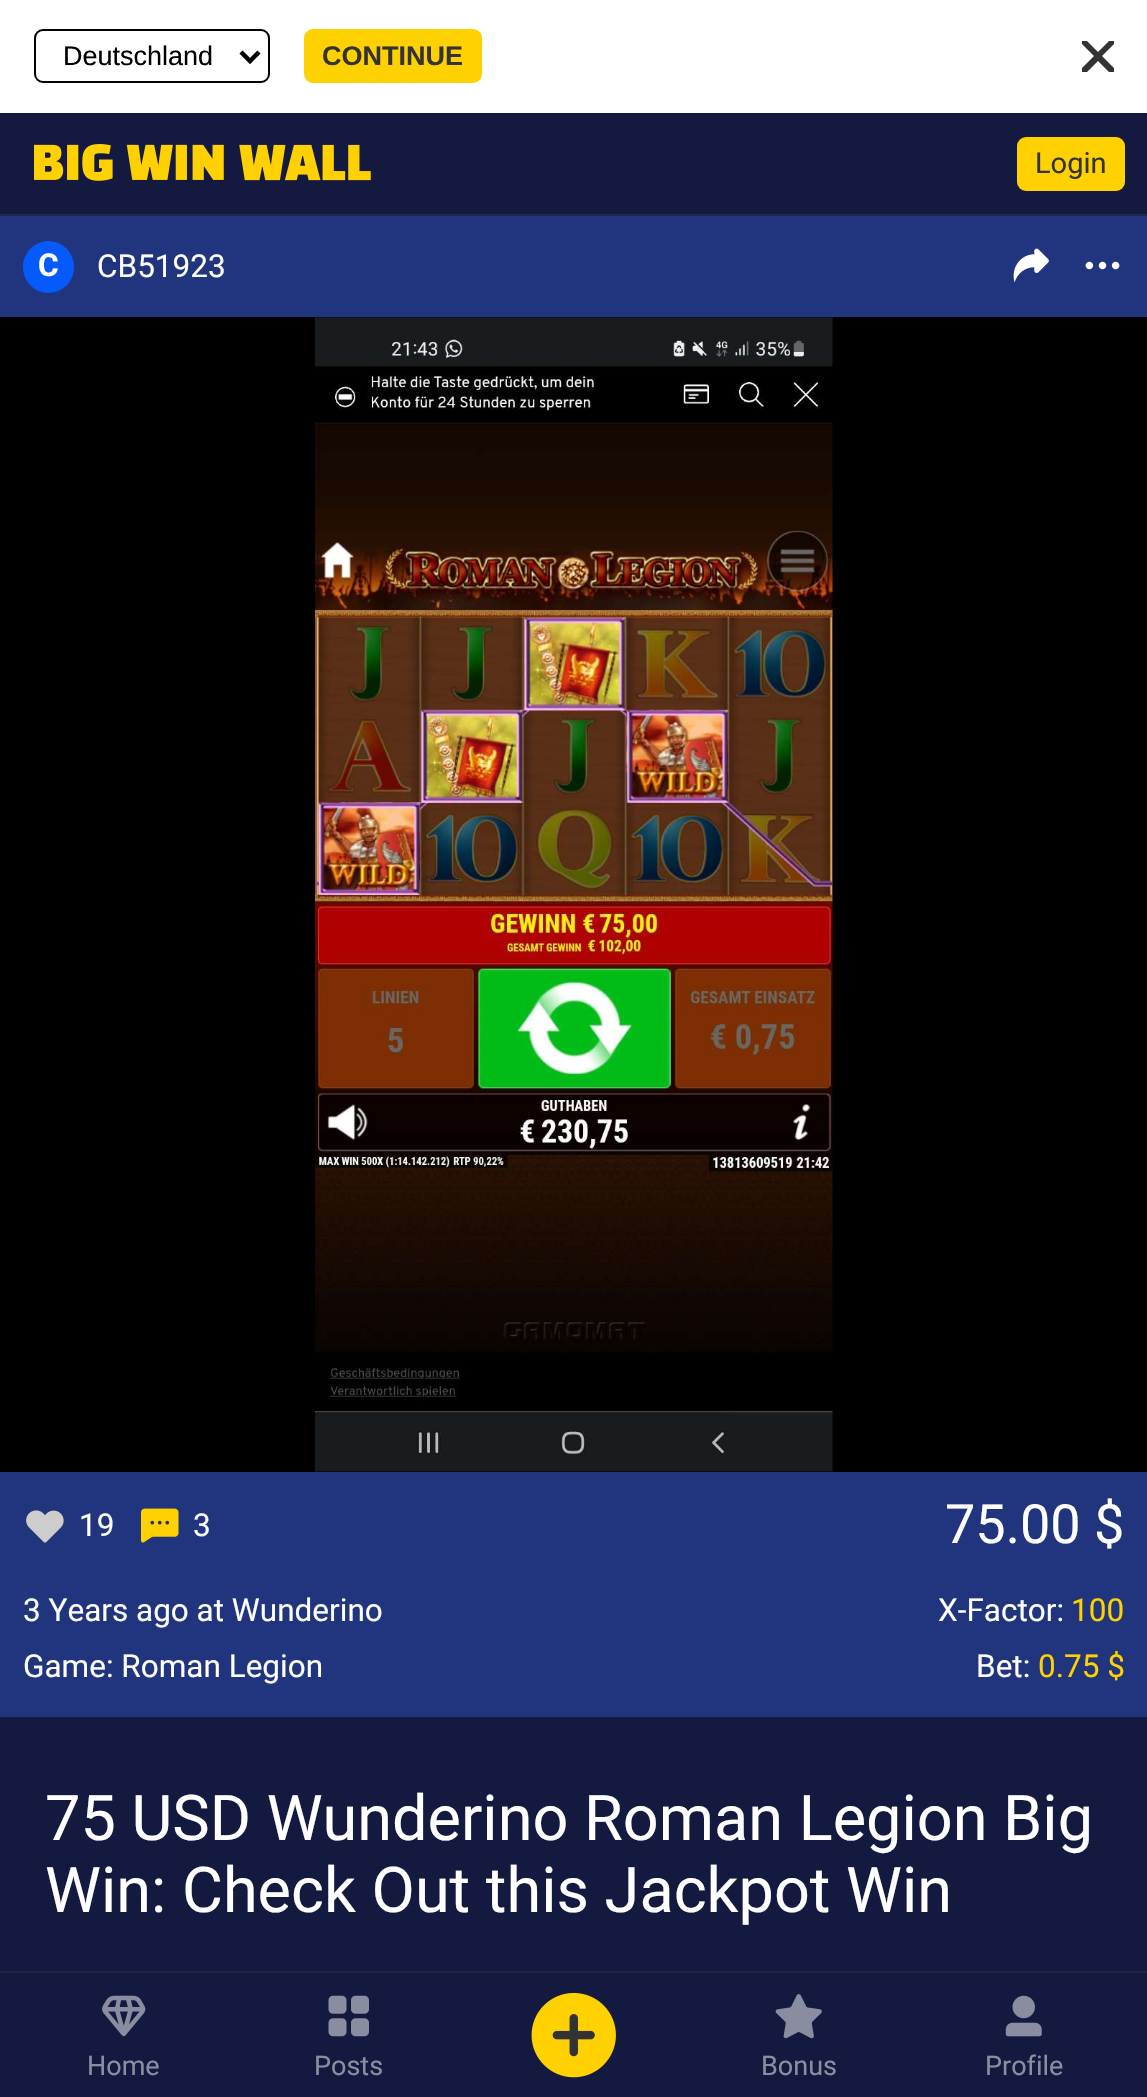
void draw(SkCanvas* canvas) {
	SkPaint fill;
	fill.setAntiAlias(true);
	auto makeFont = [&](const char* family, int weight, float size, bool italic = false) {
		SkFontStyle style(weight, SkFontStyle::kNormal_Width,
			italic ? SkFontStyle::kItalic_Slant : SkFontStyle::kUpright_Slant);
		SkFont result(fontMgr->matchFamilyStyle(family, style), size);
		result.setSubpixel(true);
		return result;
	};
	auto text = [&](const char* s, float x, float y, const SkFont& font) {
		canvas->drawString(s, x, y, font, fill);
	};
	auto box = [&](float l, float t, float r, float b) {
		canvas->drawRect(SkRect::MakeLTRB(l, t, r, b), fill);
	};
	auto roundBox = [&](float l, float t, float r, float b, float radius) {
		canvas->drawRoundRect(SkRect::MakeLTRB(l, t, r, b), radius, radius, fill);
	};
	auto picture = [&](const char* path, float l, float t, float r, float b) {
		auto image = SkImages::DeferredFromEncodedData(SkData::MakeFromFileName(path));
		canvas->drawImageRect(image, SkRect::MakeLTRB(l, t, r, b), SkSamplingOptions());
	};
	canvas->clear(0xFF141940);
	fill.setColor(0xFFFFFFFF);
	box(0, 0, 1147, 113);
	fill.setStyle(SkPaint::kStroke_Style);
	fill.setStrokeWidth(2);
	fill.setColor(0xFF000000);
	canvas->drawRoundRect(SkRect::MakeLTRB(35, 30, 269, 82), 8, 8, fill);
	fill.setStrokeWidth(4.5f);
	canvas->drawPath(SkPathBuilder().moveTo(241, 52).lineTo(250, 61).lineTo(259, 52).detach(), fill);
	fill.setStyle(SkPaint::kFill_Style);
	fill.setColor(0xFFFFD100);
	roundBox(304, 29, 482, 83, 9);
	canvas->save();
	canvas->clipRect(SkRect::MakeLTRB(1082, 41, 1114, 72));
	fill.setColor(0xFF333333);
	canvas->drawPath(SkPathBuilder(SkPathFillType::kEvenOdd).moveTo(1120, 38).lineTo(1116, 34).lineTo(1098, 52).lineTo(1080, 34).lineTo(1076, 38).lineTo(1094, 56).lineTo(1076, 74).lineTo(1080, 79).lineTo(1098, 61).lineTo(1116, 79).lineTo(1120, 74).lineTo(1102, 56).close().detach(), fill);
	canvas->restore();
	fill.setColor(0xFF20264C);
	box(0, 214, 1147, 216);
	picture("image0.png", 34, 144, 371, 181);
	fill.setColor(0xFFFFD100);
	roundBox(1017, 137, 1125, 191, 9);
	fill.setColor(0xFF20357E);
	box(0, 216, 1147, 1717);
	fill.setColor(0xFF045AFB);
	roundBox(23, 241, 74, 293, 25.5f);
	picture("image1.png", 1013, 248, 1049, 283);
	picture("image2.png", 1085, 261, 1120, 270);
	fill.setColor(0xFF000000);
	box(0, 317, 1147, 1472);
	picture("image3.png", 315, 317, 833, 1472);
	picture("image4.png", 26, 1510, 64, 1543);
	picture("image5.png", 141, 1508, 179, 1543);
	fill.setColor(0x0DFFFFFF);
	box(0, 1971, 1147, 1973);
	picture("image6.png", 102, 1995, 146, 2037);
	picture("image7.png", 328, 1995, 369, 2037);
	picture("image8.png", 531, 1992, 616, 2078);
	picture("image9.png", 775, 1994, 822, 2039);
	picture("image10.png", 1005, 1995, 1042, 2037);
	auto font1 = makeFont("Liberation Sans", 400, 27);
	fill.setColor(0xFF000000);
	text("Deutschland", 63, 65, font1);
	auto font2 = makeFont("Liberation Sans", 700, 27);
	fill.setColor(0xFF333333);
	text("CONTINUE", 322, 65, font2);
	auto font3 = makeFont("Roboto", 400, 29);
	text("Login", 1035, 173, font3);
	auto font4 = makeFont("Roboto", 700, 31.5f);
	fill.setColor(0xFFFFFFFF);
	text("C", 38, 276, font4);
	auto font5 = makeFont("Roboto", 400, 31.5f);
	text("CB51923", 97, 277, font5);
	text("19", 79, 1536, font5);
	text("3", 193, 1536, font5);
	auto font6 = makeFont("Roboto", 400, 54);
	text("75.00 $", 945, 1543, font6);
	text("3 Years ago at Wunderino", 23, 1621, font5);
	text("Game: Roman Legion", 23, 1677, font5);
	text("X-Factor:", 938, 1621, font5);
	fill.setColor(0xFFFFD100);
	text("100", 1071, 1621, font5);
	fill.setColor(0xFFFFFFFF);
	text("Bet:", 976, 1677, font5);
	fill.setColor(0xFFFFD100);
	text("0.75 $", 1038, 1677, font5);
	auto font7 = makeFont("Roboto", 400, 63);
	fill.setColor(0xFFFFFFFF);
	text("75 USD Wunderino Roman Legion Big", 45, 1840, font7);
	text("Win: Check Out this Jackpot Win", 45, 1912, font7);
	auto font8 = makeFont("Roboto", 400, 27);
	fill.setColor(0xFF8B8DA0);
	text("Home", 87, 2075, font8);
	text("Posts", 314, 2075, font8);
	text("Bonus", 761, 2075, font8);
	text("Profile", 985, 2075, font8);
}
